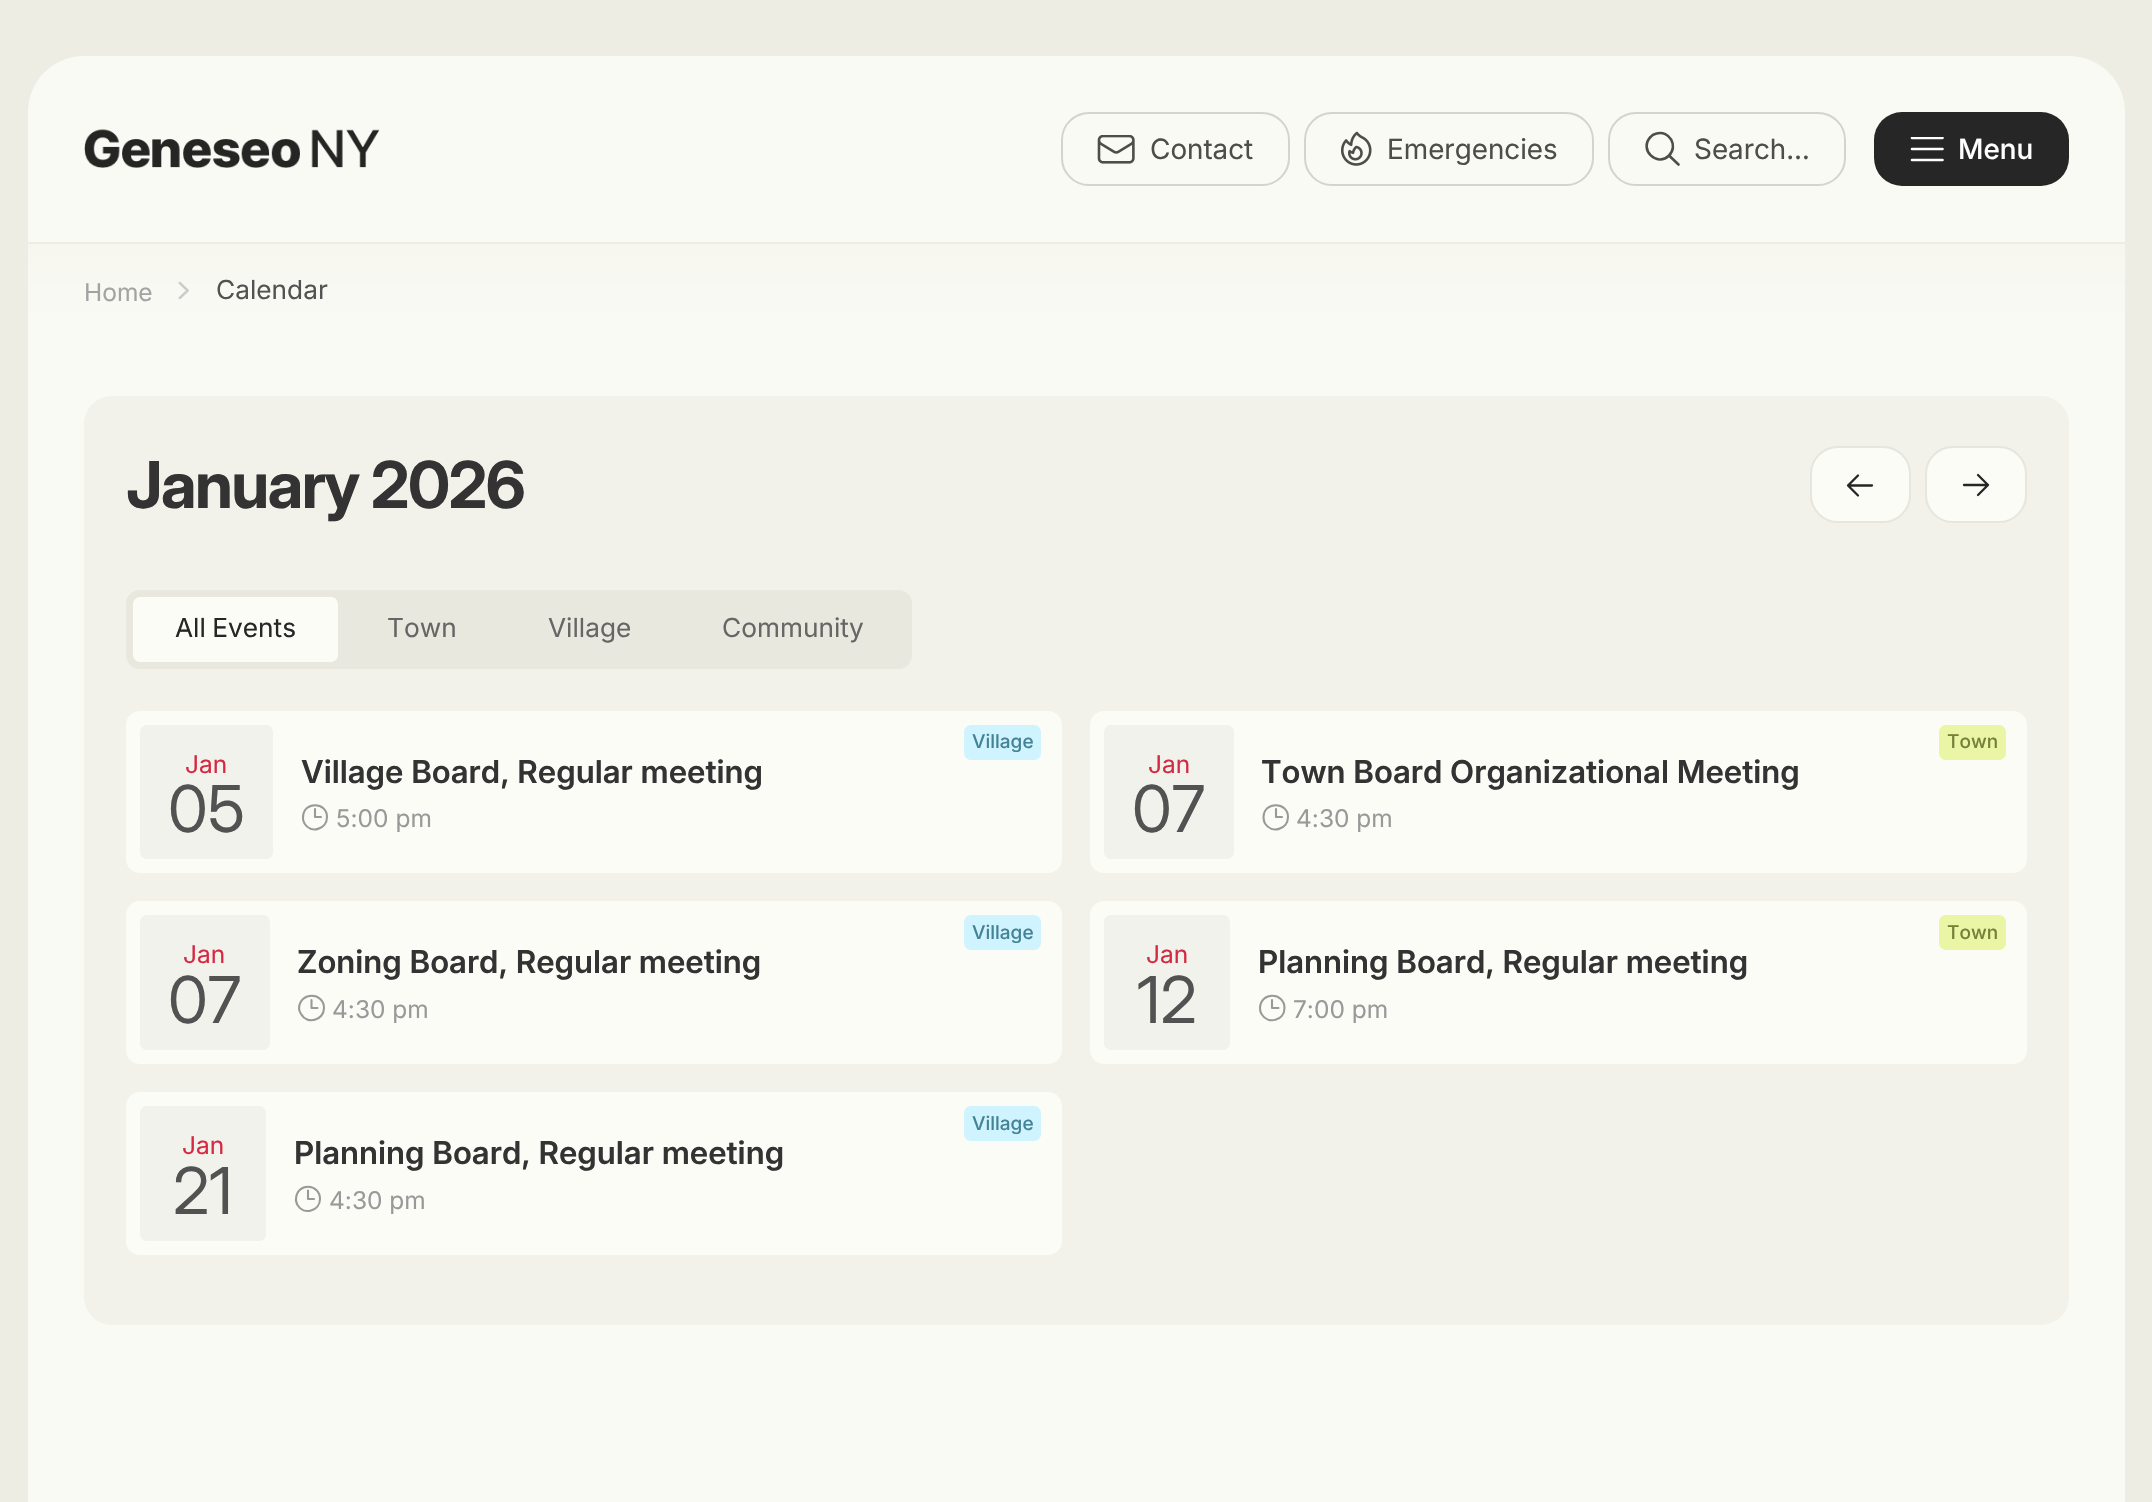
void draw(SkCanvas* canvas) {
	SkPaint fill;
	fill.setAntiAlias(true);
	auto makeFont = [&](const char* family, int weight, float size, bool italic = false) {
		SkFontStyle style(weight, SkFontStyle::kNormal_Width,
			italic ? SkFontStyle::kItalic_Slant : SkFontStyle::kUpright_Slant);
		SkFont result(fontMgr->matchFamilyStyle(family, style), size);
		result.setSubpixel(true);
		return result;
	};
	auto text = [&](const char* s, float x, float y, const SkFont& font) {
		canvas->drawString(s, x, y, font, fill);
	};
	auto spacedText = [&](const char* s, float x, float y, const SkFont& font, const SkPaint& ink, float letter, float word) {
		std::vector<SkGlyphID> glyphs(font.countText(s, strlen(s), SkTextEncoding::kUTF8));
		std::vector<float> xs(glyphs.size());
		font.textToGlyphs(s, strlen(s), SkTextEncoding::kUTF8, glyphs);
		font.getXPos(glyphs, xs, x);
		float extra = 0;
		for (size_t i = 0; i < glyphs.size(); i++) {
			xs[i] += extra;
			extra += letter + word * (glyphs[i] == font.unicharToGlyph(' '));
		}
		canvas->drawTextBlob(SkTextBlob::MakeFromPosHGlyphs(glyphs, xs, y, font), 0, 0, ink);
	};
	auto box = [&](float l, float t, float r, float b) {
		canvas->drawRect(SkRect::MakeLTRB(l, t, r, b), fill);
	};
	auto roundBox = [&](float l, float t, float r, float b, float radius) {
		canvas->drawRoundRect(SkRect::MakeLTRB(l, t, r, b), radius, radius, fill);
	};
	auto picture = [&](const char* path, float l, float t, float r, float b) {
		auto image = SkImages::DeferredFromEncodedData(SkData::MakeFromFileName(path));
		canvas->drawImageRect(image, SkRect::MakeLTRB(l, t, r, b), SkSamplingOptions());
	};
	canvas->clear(0xFFEDEDE4);
	fill.setColor(0xFFFAFAF5);
	canvas->drawPath(SkPathBuilder().moveTo(84, 56).lineTo(2069, 56).cubicTo(2100, 56, 2125, 81, 2125, 112).lineTo(2125, 242).lineTo(28, 242).lineTo(28, 112).cubicTo(28, 81, 53, 56, 84, 56).close().detach(), fill);
	picture("image0.png", 84, 129, 380, 168);
	fill.setStyle(SkPaint::kStroke_Style);
	fill.setStrokeWidth(2);
	fill.setColor(0xFFD4D4CF);
	canvas->drawRoundRect(SkRect::MakeLTRB(1062, 113, 1289, 185), 27, 27, fill);
	picture("image1.png", 1097, 135, 1135, 164);
	canvas->drawRoundRect(SkRect::MakeLTRB(1305, 113, 1593, 185), 27, 27, fill);
	picture("image2.png", 1341, 131, 1372, 166);
	canvas->drawRoundRect(SkRect::MakeLTRB(1609, 113, 1845, 185), 27, 27, fill);
	fill.setStrokeWidth(2.6f);
	fill.setStrokeCap(SkPaint::kRound_Cap);
	fill.setStrokeJoin(SkPaint::kRound_Join);
	fill.setColor(0xFF4D4D49);
	canvas->drawPath(SkPathBuilder().moveTo(1678.5f, 164.5f).lineTo(1669, 155.5f).moveTo(1669, 155.5f).cubicTo(1678.5f, 146, 1669.5f, 130, 1656.5f, 133.5f).cubicTo(1654.5f, 134, 1652, 135, 1650.5f, 137).cubicTo(1638.5f, 149.5f, 1657, 167.5f, 1669, 155.5f).close().detach(), fill);
	fill.setStyle(SkPaint::kFill_Style);
	fill.setColor(0xFF262626);
	roundBox(1874, 112, 2069, 186, 28);
	canvas->save();
	canvas->clipRect(SkRect::MakeLTRB(1909, 137, 1944, 163));
	fill.setStyle(SkPaint::kStroke_Style);
	fill.setColor(0xFFFFFFFF);
	canvas->drawPath(SkPathBuilder().moveTo(1912, 138).lineTo(1942.5f, 138).moveTo(1912, 149).lineTo(1942.5f, 149).moveTo(1912, 160).lineTo(1942.5f, 160).detach(), fill);
	canvas->restore();
	fill.setStyle(SkPaint::kFill_Style);
	{
		const SkColor colors[] = {0xFFF7F7F0, 0xFFFAFAF5};
		const float stops[] = {0, 1};
		const SkPoint ends[] = {{1076, 243}, {1076, 326}};
		fill.setShader(SkGradientShader::MakeLinear(ends, colors, stops, 2, SkTileMode::kClamp));
		fill.setAlpha(255);
	}
	box(28, 244, 2125, 326);
	picture("image3.png", 178, 281, 189, 300);
	fill.setShader(nullptr);
	fill.setColor(0xFFFAFAF5);
	box(28, 326, 2125, 1502);
	fill.setColor(0xFFF2F2EB);
	roundBox(84, 396, 2069, 1325, 28);
	fill.setColor(0xFFFCFCF7);
	canvas->drawRoundRect(SkRect::MakeLTRB(1811, 447, 1910, 522), 27, 27, fill);
	fill.setStyle(SkPaint::kStroke_Style);
	fill.setStrokeWidth(2);
	fill.setStrokeCap(SkPaint::kButt_Cap);
	fill.setStrokeJoin(SkPaint::kMiter_Join);
	fill.setColor(0xFFE6E6DF);
	canvas->drawRoundRect(SkRect::MakeLTRB(1811, 447, 1910, 522), 27, 27, fill);
	fill.setStrokeWidth(2.3f);
	fill.setStrokeCap(SkPaint::kRound_Cap);
	fill.setStrokeJoin(SkPaint::kRound_Join);
	fill.setColor(0xFF262626);
	canvas->drawPath(SkPathBuilder().moveTo(1858, 495.5f).lineTo(1848, 485.5f).moveTo(1848, 485.5f).lineTo(1858, 475.5f).moveTo(1848, 485.5f).lineTo(1872, 485.5f).detach(), fill);
	fill.setStyle(SkPaint::kFill_Style);
	fill.setColor(0xFFFCFCF7);
	canvas->drawRoundRect(SkRect::MakeLTRB(1926, 447, 2026, 522), 27, 27, fill);
	fill.setStyle(SkPaint::kStroke_Style);
	fill.setStrokeWidth(2);
	fill.setStrokeCap(SkPaint::kButt_Cap);
	fill.setStrokeJoin(SkPaint::kMiter_Join);
	fill.setColor(0xFFE6E6DF);
	canvas->drawRoundRect(SkRect::MakeLTRB(1926, 447, 2026, 522), 27, 27, fill);
	fill.setStrokeWidth(2.3f);
	fill.setStrokeCap(SkPaint::kRound_Cap);
	fill.setStrokeJoin(SkPaint::kRound_Join);
	fill.setColor(0xFF262626);
	canvas->drawPath(SkPathBuilder().moveTo(1978, 475).lineTo(1988, 485).moveTo(1988, 485).lineTo(1978, 495).moveTo(1988, 485).lineTo(1964, 485).detach(), fill);
	fill.setStyle(SkPaint::kFill_Style);
	fill.setColor(0xFFE8E8DF);
	roundBox(126, 590, 912, 669, 14);
	fill.setColor(0xFFFCFCF7);
	roundBox(133, 597, 338, 662, 7);
	roundBox(126, 711, 1062, 873, 14);
	fill.setColor(0xFFD0F4FF);
	roundBox(964, 725, 1041, 760, 7);
	fill.setColor(0xFFF2F2EC);
	roundBox(140, 725, 273, 859, 7);
	fill.setStyle(SkPaint::kStroke_Style);
	fill.setStrokeWidth(2.1f);
	fill.setColor(0xFF999999);
	canvas->drawPath(SkPathBuilder().moveTo(315, 809).lineTo(315, 817).lineTo(321, 817).moveTo(327, 817).cubicTo(327, 829.5f, 310.5f, 834, 304.5f, 823.5f).cubicTo(303.5f, 821.5f, 302.5f, 819.5f, 303, 817).cubicTo(303.5f, 801, 327, 801.5f, 327, 817).close().detach(), fill);
	fill.setStyle(SkPaint::kFill_Style);
	fill.setColor(0xFFFCFCF7);
	roundBox(1090, 711, 2027, 873, 14);
	fill.setColor(0xFFEAF5A6);
	roundBox(1939, 725, 2006, 760, 7);
	fill.setColor(0xFFF2F2EC);
	roundBox(1104, 725, 1234, 859, 7);
	fill.setStyle(SkPaint::kStroke_Style);
	fill.setColor(0xFF999999);
	canvas->drawPath(SkPathBuilder().moveTo(1276, 809).lineTo(1276, 817).lineTo(1282, 817).moveTo(1288, 817).cubicTo(1288, 829.5f, 1271.5f, 834, 1265, 823.5f).cubicTo(1264, 821.5f, 1263.5f, 819.5f, 1263.5f, 817).cubicTo(1264, 801, 1288, 801.5f, 1288, 817).close().detach(), fill);
	fill.setStyle(SkPaint::kFill_Style);
	fill.setColor(0xFFFCFCF7);
	roundBox(126, 901, 1062, 1064, 14);
	fill.setColor(0xFFD0F4FF);
	roundBox(964, 915, 1041, 950, 7);
	fill.setColor(0xFFF2F2EC);
	roundBox(140, 915, 270, 1050, 7);
	fill.setStyle(SkPaint::kStroke_Style);
	fill.setColor(0xFF999999);
	canvas->drawPath(SkPathBuilder().moveTo(311.5f, 1000).lineTo(311.5f, 1008).lineTo(317.5f, 1008).moveTo(324, 1008).cubicTo(324, 1020.5f, 307, 1025, 301, 1014).cubicTo(300, 1012.5f, 299, 1010, 299, 1008).cubicTo(300, 991.5f, 324, 992, 324, 1008).close().detach(), fill);
	fill.setStyle(SkPaint::kFill_Style);
	fill.setColor(0xFFFCFCF7);
	roundBox(1090, 901, 2027, 1064, 14);
	fill.setColor(0xFFEAF5A6);
	roundBox(1939, 915, 2006, 950, 7);
	fill.setColor(0xFFF2F2EC);
	roundBox(1104, 915, 1230, 1050, 7);
	fill.setStyle(SkPaint::kStroke_Style);
	fill.setColor(0xFF999999);
	canvas->drawPath(SkPathBuilder().moveTo(1272, 1000).lineTo(1272, 1008).lineTo(1278.5f, 1008).moveTo(1284.5f, 1008).cubicTo(1284.5f, 1020.5f, 1268, 1025, 1261.5f, 1014).cubicTo(1260.5f, 1012.5f, 1260, 1010, 1260, 1008).cubicTo(1260.5f, 991.5f, 1284.5f, 992, 1284.5f, 1008).close().detach(), fill);
	fill.setStyle(SkPaint::kFill_Style);
	fill.setColor(0xFFFCFCF7);
	roundBox(126, 1092, 1062, 1255, 14);
	fill.setColor(0xFFD0F4FF);
	roundBox(964, 1106, 1041, 1141, 7);
	fill.setColor(0xFFF2F2EC);
	roundBox(140, 1106, 266, 1241, 7);
	fill.setStyle(SkPaint::kStroke_Style);
	fill.setColor(0xFF999999);
	canvas->drawPath(SkPathBuilder().moveTo(308, 1190.5f).lineTo(308, 1199).lineTo(314, 1199).moveTo(320, 1199).cubicTo(320, 1211, 303.5f, 1215.5f, 297.5f, 1205).cubicTo(296.5f, 1203, 295.5f, 1201, 296, 1199).cubicTo(296.5f, 1182.5f, 320, 1183, 320, 1199).close().detach(), fill);
	auto font1 = makeFont("Inter", 400, 28);
	fill.setStyle(SkPaint::kFill_Style);
	fill.setColor(0xFF4D4D49);
	text("Contact", 1150, 159, font1);
	text("Emergencies", 1387, 159, font1);
	text("Search…", 1694, 159, font1);
	auto font2 = makeFont("Inter", 500, 28);
	fill.setColor(0xFFFFFFFF);
	text("Menu", 1958, 159, font2);
	auto font3 = makeFont("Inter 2", 400, 24.5f);
	fill.setColor(0xFFA3A3A3);
	text("Home", 84, 301, font3);
	auto font4 = makeFont("Inter 2", 400, 26.25f);
	fill.setColor(0xFF525252);
	text("Calendar", 216, 299, font4);
	auto font5 = makeFont("Inter", 700, 64.75f);
	fill.setColor(0xFF333333);
	spacedText("January 2026", 126, 508, font5, fill, -1.6f, 0);
	fill.setColor(0xFF262626);
	spacedText("All Events", 175, 637, font4, fill, 0, -1);
	fill.setColor(0xFF666666);
	text("Town", 387, 637, font4);
	text("Village", 548, 637, font4);
	text("Community", 722, 637, font4);
	auto font6 = makeFont("Inter 2", 500, 19);
	fill.setColor(0xFF448396);
	text("Village", 972, 748, font6);
	fill.setColor(0xFFD52941);
	text("Jan", 185, 773, font3);
	auto font7 = makeFont("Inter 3", 400, 64.75f);
	fill.setColor(0xFF525252);
	text("05", 168, 832, font7);
	auto font8 = makeFont("Inter", 600, 31.5f);
	fill.setColor(0xFF333333);
	text("Village Board, Regular meeting", 301, 783, font8);
	fill.setColor(0xFF999999);
	text("5:00 pm", 336, 827, font3);
	fill.setColor(0xFF778038);
	text("Town", 1947, 748, font6);
	fill.setColor(0xFFD52941);
	text("Jan", 1148, 773, font3);
	fill.setColor(0xFF525252);
	text("07", 1132, 832, font7);
	fill.setColor(0xFF333333);
	text("Town Board Organizational Meeting", 1261, 783, font8);
	fill.setColor(0xFF999999);
	text("4:30 pm", 1296, 827, font3);
	fill.setColor(0xFF448396);
	text("Village", 972, 939, font6);
	fill.setColor(0xFFD52941);
	text("Jan", 183, 963, font3);
	fill.setColor(0xFF525252);
	text("07", 168, 1023, font7);
	fill.setColor(0xFF333333);
	text("Zoning Board, Regular meeting", 297, 973, font8);
	fill.setColor(0xFF999999);
	text("4:30 pm", 332, 1018, font3);
	fill.setColor(0xFF778038);
	text("Town", 1947, 939, font6);
	fill.setColor(0xFFD52941);
	text("Jan", 1146, 963, font3);
	fill.setColor(0xFF525252);
	text("12", 1137, 1023, font7);
	fill.setColor(0xFF333333);
	text("Planning Board, Regular meeting", 1258, 973, font8);
	fill.setColor(0xFF999999);
	text("7:00 pm", 1293, 1018, font3);
	fill.setColor(0xFF448396);
	text("Village", 972, 1130, font6);
	fill.setColor(0xFFD52941);
	text("Jan", 182, 1154, font3);
	fill.setColor(0xFF525252);
	text("21", 173, 1214, font7);
	fill.setColor(0xFF333333);
	text("Planning Board, Regular meeting", 294, 1164, font8);
	fill.setColor(0xFF999999);
	text("4:30 pm", 329, 1209, font3);
}
